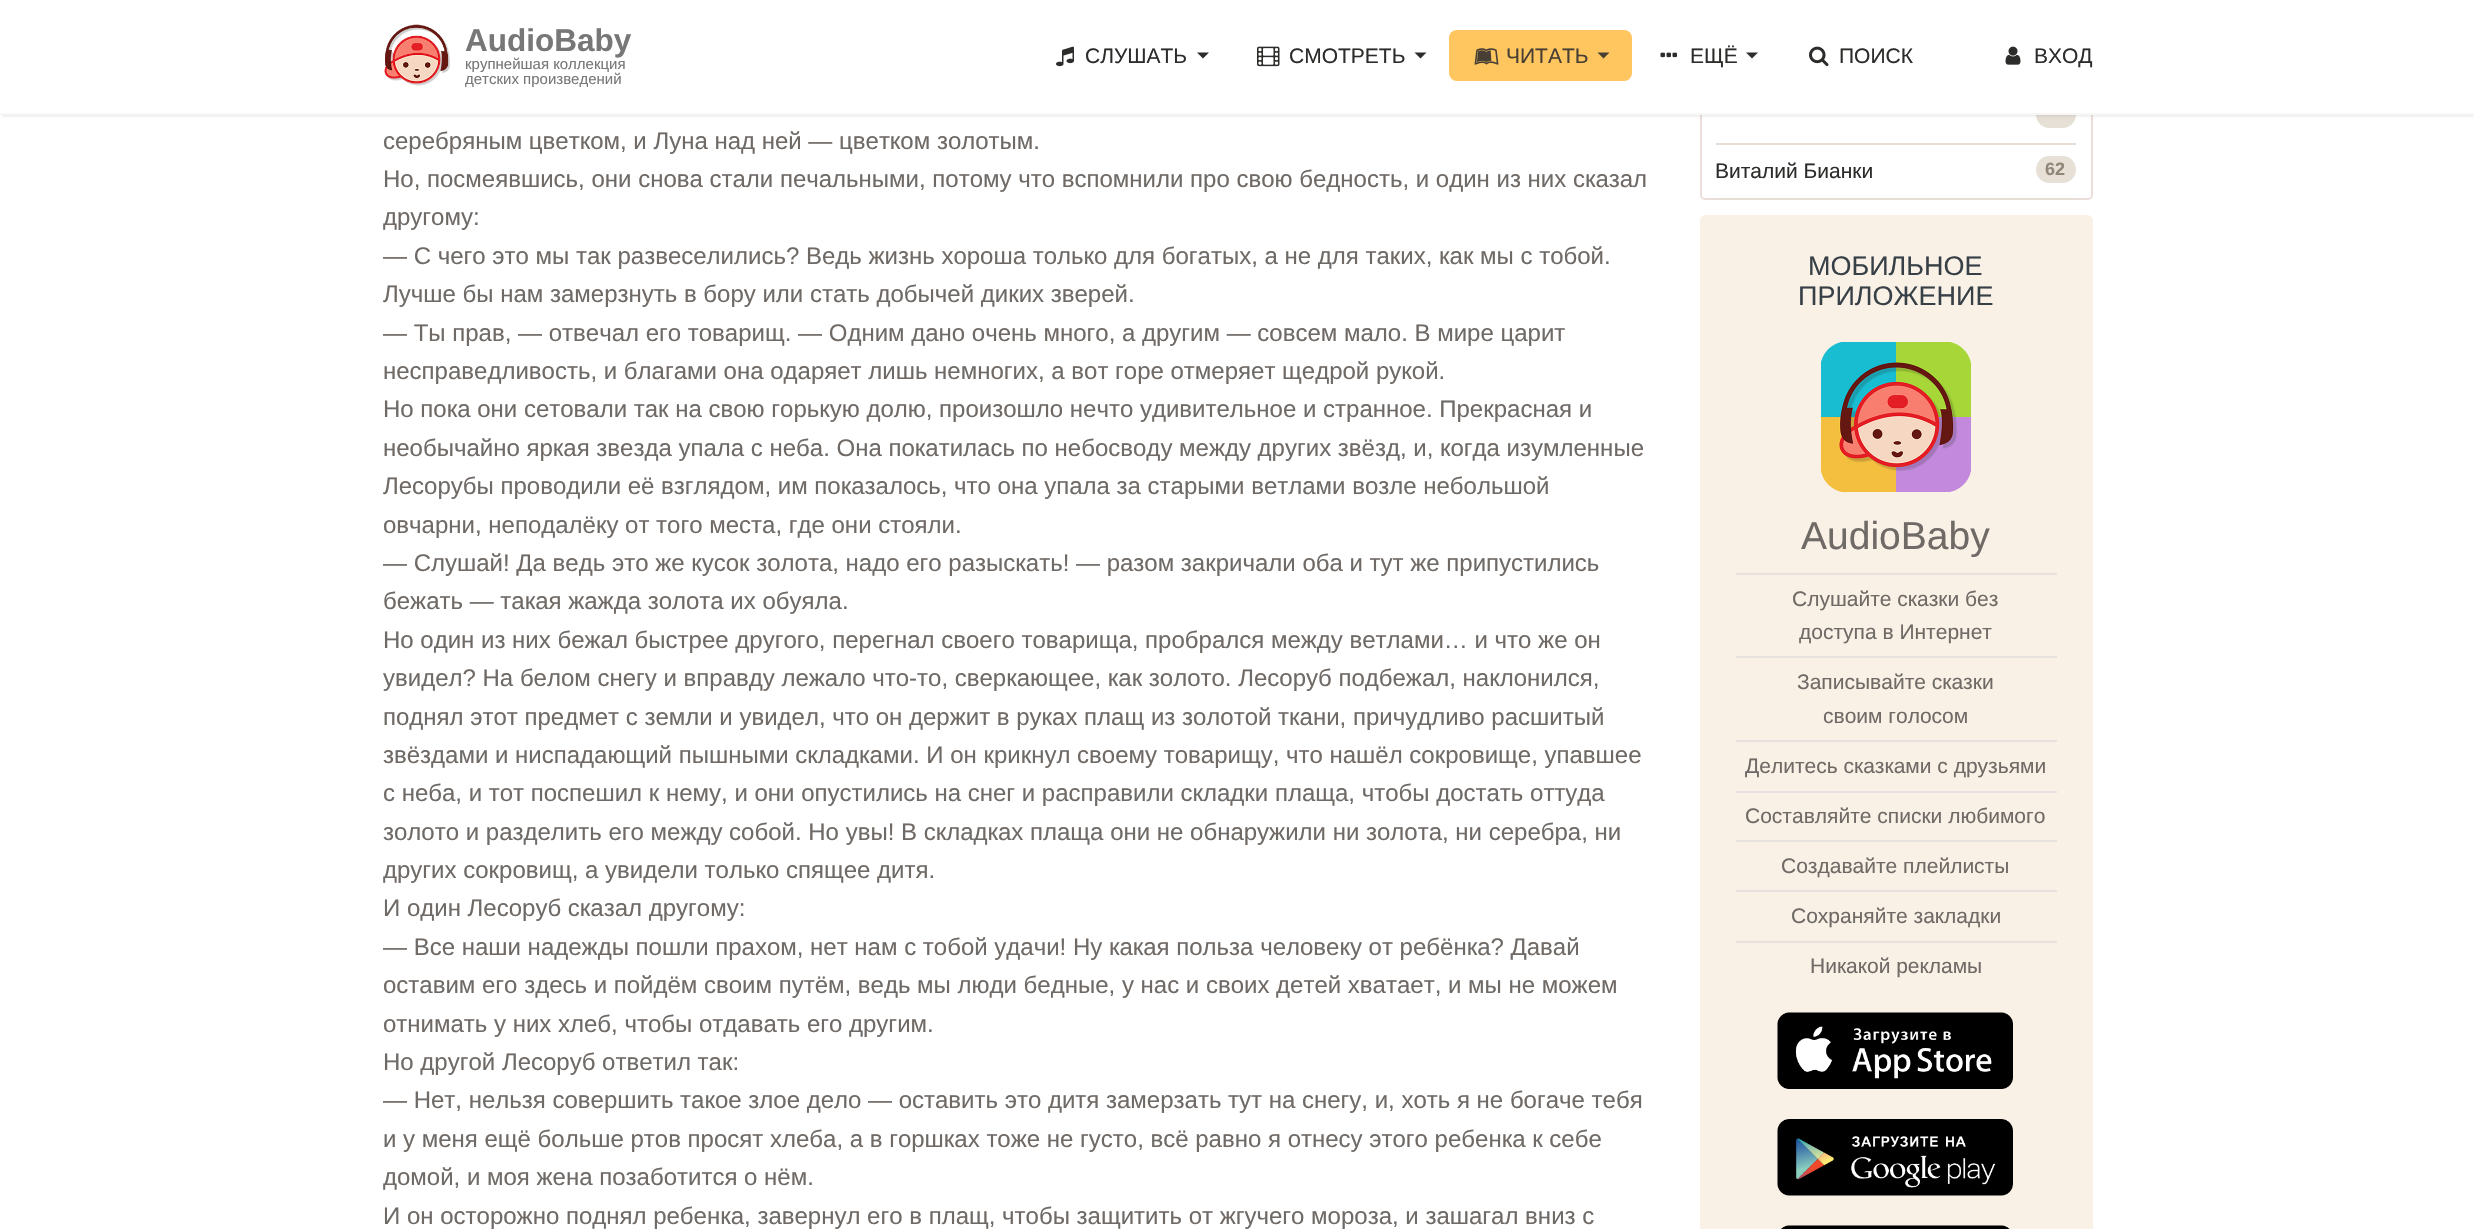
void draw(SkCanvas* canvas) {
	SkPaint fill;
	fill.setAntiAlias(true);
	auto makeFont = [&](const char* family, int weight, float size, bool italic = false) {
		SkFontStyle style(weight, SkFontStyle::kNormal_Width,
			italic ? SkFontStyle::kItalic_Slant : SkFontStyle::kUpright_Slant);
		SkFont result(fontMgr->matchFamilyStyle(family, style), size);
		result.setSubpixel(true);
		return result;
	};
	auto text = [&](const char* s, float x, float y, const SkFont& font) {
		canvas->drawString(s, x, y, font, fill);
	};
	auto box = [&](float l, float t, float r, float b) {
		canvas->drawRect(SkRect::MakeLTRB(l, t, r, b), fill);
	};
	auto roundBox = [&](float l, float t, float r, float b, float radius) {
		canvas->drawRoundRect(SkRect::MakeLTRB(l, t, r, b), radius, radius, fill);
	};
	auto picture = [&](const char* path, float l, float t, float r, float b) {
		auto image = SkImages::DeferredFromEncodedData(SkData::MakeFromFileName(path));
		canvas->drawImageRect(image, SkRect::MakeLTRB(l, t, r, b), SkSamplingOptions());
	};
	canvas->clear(0xFFFFFFFF);
	fill.setStyle(SkPaint::kStroke_Style);
	fill.setStrokeWidth(2);
	fill.setColor(0xFFEADEDA);
	canvas->drawRoundRect(SkRect::MakeLTRB(1701, -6, 2092, 199), 4, 4, fill);
	fill.setStyle(SkPaint::kFill_Style);
	fill.setColor(0xFFE7E0D7);
	roundBox(2036, 101, 2076, 128, 13.5f);
	fill.setColor(0x1A000000);
	fill.setMaskFilter(SkMaskFilter::MakeBlur(kNormal_SkBlurStyle, 1.5f));
	canvas->drawRect(SkRect::MakeLTRB(2, 5, 2474, 116), fill);
	fill.setMaskFilter(nullptr);
	fill.setColor(0xFFFFFFFF);
	box(0, 0, 2474, 113);
	fill.setColor(0xFFF7F7F7);
	box(0, 113, 2474, 115);
	picture("image0.png", 384, 24, 450, 86);
	picture("image1.png", 1056, 46, 1074, 67);
	fill.setColor(0xFF2C2C2A);
	canvas->drawPath(SkPathBuilder().moveTo(1197, 52.5f).lineTo(1209, 52.5f).lineTo(1203, 58.5f).close().detach(), fill);
	picture("image2.png", 1257, 46, 1280, 67);
	canvas->drawPath(SkPathBuilder().moveTo(1414.5f, 52.5f).lineTo(1426.5f, 52.5f).lineTo(1420.5f, 58.5f).close().detach(), fill);
	fill.setColor(0xFFFFC55F);
	roundBox(1449, 30, 1632, 81, 8);
	picture("image3.png", 1474, 48, 1499, 65);
	fill.setColor(0xFF483F34);
	canvas->drawPath(SkPathBuilder().moveTo(1597.5f, 52.5f).lineTo(1609.5f, 52.5f).lineTo(1603.5f, 58.5f).close().detach(), fill);
	picture("image4.png", 1660, 52, 1677, 58);
	fill.setColor(0xFF2C2C2A);
	canvas->drawPath(SkPathBuilder().moveTo(1746, 52.5f).lineTo(1758, 52.5f).lineTo(1752, 58.5f).close().detach(), fill);
	picture("image5.png", 1809, 46, 1829, 67);
	picture("image6.png", 2005, 46, 2021, 65);
	fill.setColor(0xFFE6DDD4);
	box(1716, 143, 2076, 145);
	box(1716, 198, 2076, 200);
	fill.setColor(0xFFE7E0D7);
	roundBox(2036, 156, 2076, 183, 13.5f);
	fill.setColor(0xFFF9F1E6);
	roundBox(1700, 215, 2093, 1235, 6);
	picture("image7.png", 1821, 342, 1971, 492);
	fill.setColor(0xFFE7E1DF);
	box(1736, 573, 2057, 575);
	box(1736, 656, 2057, 658);
	box(1736, 740, 2057, 742);
	box(1736, 791, 2057, 793);
	box(1736, 840, 2057, 842);
	box(1736, 890, 2057, 892);
	box(1736, 941, 2057, 943);
	picture("image8.png", 1777, 1012, 2013, 1089);
	picture("image9.png", 1777, 1119, 2013, 1196);
	picture("image10.png", 1781, 1225, 2010, 1229);
	auto font1 = makeFont("Liberation Sans", 700, 31.5f);
	fill.setColor(0xFF777777);
	text("AudioBaby", 465, 51, font1);
	auto font2 = makeFont("Liberation Sans", 400, 15);
	text("крупнейшая коллекция", 465, 69, font2);
	text("детских произведений", 465, 84, font2);
	auto font3 = makeFont("Liberation Sans", 400, 21);
	fill.setColor(0xFF2C2C2A);
	text("СЛУШАТЬ", 1085, 63, font3);
	text("СМОТРЕТЬ", 1289, 63, font3);
	fill.setColor(0xFF483F34);
	text("ЧИТАТЬ", 1506, 63, font3);
	fill.setColor(0xFF2C2C2A);
	text("ЕЩЁ", 1690, 63, font3);
	text("ПОИСК", 1839, 63, font3);
	text("ВХОД", 2034, 63, font3);
	auto font4 = makeFont("Liberation Sans", 400, 24);
	fill.setColor(0xFF6F6A66);
	text("серебряным цветком, и Луна над ней — цветком золотым.", 383, 149, font4);
	text("Но, посмеявшись, они снова стали печальными, потому что вспомнили про свою бедность, и один из них сказал", 383, 187, font4);
	text("другому:", 383, 225, font4);
	text("— С чего это мы так развеселились? Ведь жизнь хороша только для богатых, а не для таких, как мы с тобой.", 383, 264, font4);
	text("Лучше бы нам замерзнуть в бору или стать добычей диких зверей.", 383, 302, font4);
	text("— Ты прав, — отвечал его товарищ. — Одним дано очень много, а другим — совсем мало. В мире царит", 383, 341, font4);
	text("несправедливость, и благами она одаряет лишь немногих, а вот горе отмеряет щедрой рукой.", 383, 379, font4);
	text("Но пока они сетовали так на свою горькую долю, произошло нечто удивительное и странное. Прекрасная и", 383, 417, font4);
	text("необычайно яркая звезда упала с неба. Она покатилась по небосводу между других звёзд, и, когда изумленные", 383, 456, font4);
	text("Лесорубы проводили её взглядом, им показалось, что она упала за старыми ветлами возле небольшой", 383, 494, font4);
	text("овчарни, неподалёку от того места, где они стояли.", 383, 533, font4);
	text("— Слушай! Да ведь это же кусок золота, надо его разыскать! — разом закричали оба и тут же припустились", 383, 571, font4);
	text("бежать — такая жажда золота их обуяла.", 383, 609, font4);
	text("Но один из них бежал быстрее другого, перегнал своего товарища, пробрался между ветлами… и что же он", 383, 648, font4);
	text("увидел? На белом снегу и вправду лежало что-то, сверкающее, как золото. Лесоруб подбежал, наклонился,", 383, 686, font4);
	text("поднял этот предмет с земли и увидел, что он держит в руках плащ из золотой ткани, причудливо расшитый", 383, 725, font4);
	text("звёздами и ниспадающий пышными складками. И он крикнул своему товарищу, что нашёл сокровище, упавшее", 383, 763, font4);
	text("с неба, и тот поспешил к нему, и они опустились на снег и расправили складки плаща, чтобы достать оттуда", 383, 801, font4);
	text("золото и разделить его между собой. Но увы! В складках плаща они не обнаружили ни золота, ни серебра, ни", 383, 840, font4);
	text("других сокровищ, а увидели только спящее дитя.", 383, 878, font4);
	text("И один Лесоруб сказал другому:", 383, 916, font4);
	text("— Все наши надежды пошли прахом, нет нам с тобой удачи! Ну какая польза человеку от ребёнка? Давай", 383, 955, font4);
	text("оставим его здесь и пойдём своим путём, ведь мы люди бедные, у нас и своих детей хватает, и мы не можем", 383, 993, font4);
	text("отнимать у них хлеб, чтобы отдавать его другим.", 383, 1032, font4);
	text("Но другой Лесоруб ответил так:", 383, 1070, font4);
	text("— Нет, нельзя совершить такое злое дело — оставить это дитя замерзать тут на снегу, и, хоть я не богаче тебя", 383, 1108, font4);
	text("и у меня ещё больше ртов просят хлеба, а в горшках тоже не густо, всё равно я отнесу этого ребенка к себе", 383, 1147, font4);
	text("домой, и моя жена позаботится о нём.", 383, 1185, font4);
	text("И он осторожно поднял ребенка, завернул его в плащ, чтобы защитить от жгучего мороза, и зашагал вниз с", 383, 1224, font4);
	fill.setColor(0xFF2C2C2A);
	text("Виталий Бианки", 1715, 178, font3);
	auto font5 = makeFont("Liberation Sans", 700, 18);
	fill.setColor(0xFF918677);
	text("62", 2045, 175, font5);
	auto font6 = makeFont("Liberation Sans", 400, 27);
	fill.setColor(0xFF384047);
	text("МОБИЛЬНОЕ", 1808, 275, font6);
	text("ПРИЛОЖЕНИЕ", 1798, 305, font6);
	auto font7 = makeFont("Liberation Sans", 400, 39);
	fill.setColor(0xFF6F6A66);
	text("AudioBaby", 1801, 549, font7);
	text("Слушайте сказки без", 1792, 606, font3);
	text("доступа в Интернет", 1799, 639, font3);
	text("Записывайте сказки", 1797, 689, font3);
	text("своим голосом", 1823, 723, font3);
	text("Делитесь сказками с друзьями", 1745, 773, font3);
	text("Составляйте списки любимого", 1745, 823, font3);
	text("Создавайте плейлисты", 1781, 873, font3);
	text("Сохраняйте закладки", 1791, 923, font3);
	text("Никакой рекламы", 1810, 973, font3);
}
